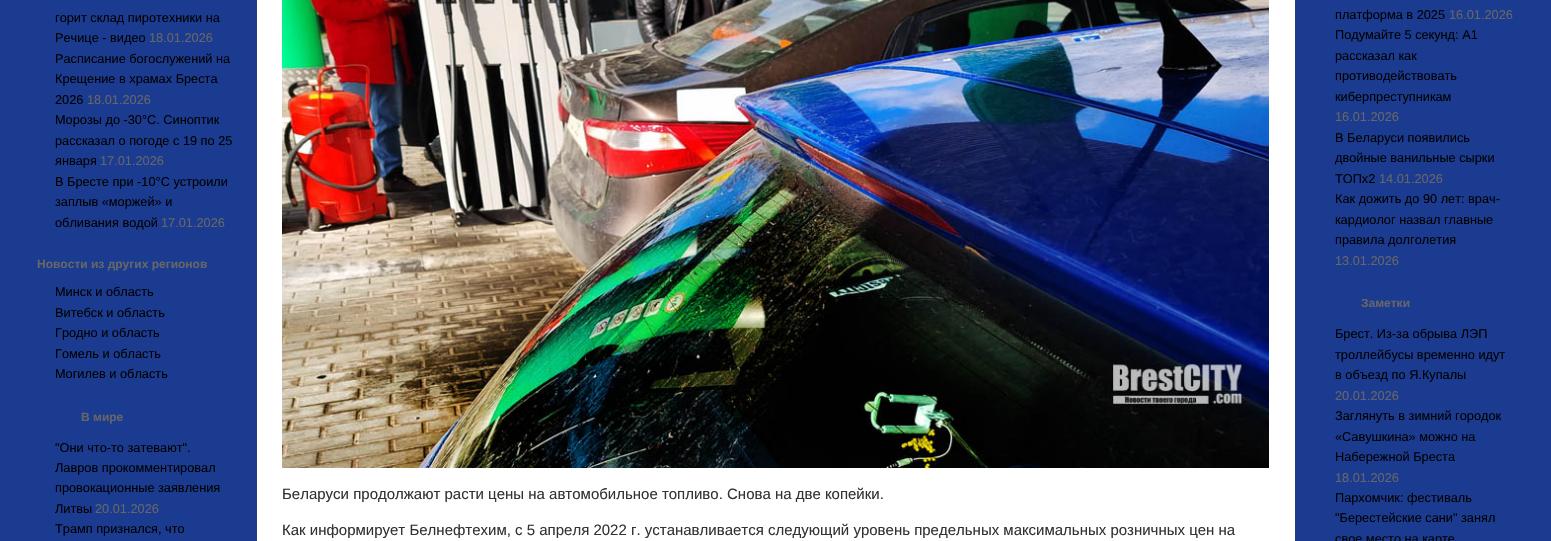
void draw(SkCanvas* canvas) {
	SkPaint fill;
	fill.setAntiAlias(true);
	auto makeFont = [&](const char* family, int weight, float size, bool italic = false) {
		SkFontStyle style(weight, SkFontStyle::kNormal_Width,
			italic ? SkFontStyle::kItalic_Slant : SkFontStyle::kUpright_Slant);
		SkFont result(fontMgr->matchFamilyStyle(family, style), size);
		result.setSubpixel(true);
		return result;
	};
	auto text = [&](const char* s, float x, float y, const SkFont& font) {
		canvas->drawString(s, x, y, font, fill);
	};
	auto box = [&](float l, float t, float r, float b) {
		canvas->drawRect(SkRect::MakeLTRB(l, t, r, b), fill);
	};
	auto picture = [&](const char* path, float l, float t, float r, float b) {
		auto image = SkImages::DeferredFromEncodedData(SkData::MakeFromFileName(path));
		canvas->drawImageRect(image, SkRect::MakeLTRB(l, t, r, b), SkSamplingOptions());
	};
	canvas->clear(0xFF1B3B90);
	fill.setColor(0xFFFFFFFF);
	box(257, 0, 1295, 541);
	picture("image0.png", 282, 0, 1269, 468);
	auto font1 = makeFont("Liberation Sans", 400, 12.75f);
	fill.setColor(0xFF000000);
	text("горит склад пиротехники на", 55, 22, font1);
	text("Речице - видео", 55, 42, font1);
	fill.setColor(0xFF666666);
	text("18.01.2026", 149, 42, font1);
	fill.setColor(0xFF000000);
	text("Расписание богослужений на", 55, 63, font1);
	text("Крещение в храмах Бреста", 55, 83, font1);
	text("2026", 55, 104, font1);
	fill.setColor(0xFF666666);
	text("18.01.2026", 87, 104, font1);
	fill.setColor(0xFF000000);
	text("Морозы до -30°C. Синоптик", 55, 124, font1);
	text("рассказал о погоде с 19 по 25", 55, 145, font1);
	text("января", 55, 165, font1);
	fill.setColor(0xFF666666);
	text("17.01.2026", 100, 165, font1);
	fill.setColor(0xFF000000);
	text("В Бресте при -10°С устроили", 55, 186, font1);
	text("заплыв «моржей» и", 55, 206, font1);
	text("обливания водой", 55, 227, font1);
	fill.setColor(0xFF666666);
	text("17.01.2026", 161, 227, font1);
	auto font2 = makeFont("Liberation Sans", 700, 12);
	text("Новости из других регионов", 37, 268, font2);
	fill.setColor(0xFF000000);
	text("Минск и область", 55, 296, font1);
	text("Витебск и область", 55, 317, font1);
	text("Гродно и область", 55, 337, font1);
	text("Гомель и область", 55, 358, font1);
	text("Могилев и область", 55, 378, font1);
	fill.setColor(0xFF666666);
	text("В мире", 81, 421, font2);
	fill.setColor(0xFF000000);
	text("\"Они что-то затевают\".", 55, 452, font1);
	text("Лавров прокомментировал", 55, 472, font1);
	text("провокационные заявления", 55, 492, font1);
	text("Литвы", 55, 513, font1);
	fill.setColor(0xFF666666);
	text("20.01.2026", 95, 513, font1);
	fill.setColor(0xFF000000);
	text("Трамп признался, что", 55, 533, font1);
	auto font3 = makeFont("Liberation Sans", 400, 15);
	fill.setColor(0xFF333333);
	text("Беларуси продолжают расти цены на автомобильное топливо. Снова на две копейки.", 282, 499, font3);
	text("Как информирует Белнефтехим, с 5 апреля 2022 г. устанавливается следующий уровень предельных максимальных розничных цен на", 282, 535, font3);
	fill.setColor(0xFF000000);
	text("платформа в 2025", 1335, 19, font1);
	fill.setColor(0xFF666666);
	text("16.01.2026", 1449, 19, font1);
	fill.setColor(0xFF000000);
	text("Подумайте 5 секунд: А1", 1335, 39, font1);
	text("рассказал как", 1335, 60, font1);
	text("противодействовать", 1335, 80, font1);
	text("киберпреступникам", 1335, 101, font1);
	fill.setColor(0xFF666666);
	text("16.01.2026", 1335, 121, font1);
	fill.setColor(0xFF000000);
	text("В Беларуси появились", 1335, 142, font1);
	text("двойные ванильные сырки", 1335, 162, font1);
	text("ТОПх2", 1335, 183, font1);
	fill.setColor(0xFF666666);
	text("14.01.2026", 1379, 183, font1);
	fill.setColor(0xFF000000);
	text("Как дожить до 90 лет: врач-", 1335, 203, font1);
	text("кардиолог назвал главные", 1335, 224, font1);
	text("правила долголетия", 1335, 244, font1);
	fill.setColor(0xFF666666);
	text("13.01.2026", 1335, 265, font1);
	text("Заметки", 1361, 307, font2);
	fill.setColor(0xFF000000);
	text("Брест. Из-за обрыва ЛЭП", 1335, 338, font1);
	text("троллейбусы временно идут", 1335, 359, font1);
	text("в объезд по Я.Купалы", 1335, 379, font1);
	fill.setColor(0xFF666666);
	text("20.01.2026", 1335, 400, font1);
	fill.setColor(0xFF000000);
	text("Заглянуть в зимний городок", 1335, 420, font1);
	text("«Савушкина» можно на", 1335, 441, font1);
	text("Набережной Бреста", 1335, 461, font1);
	fill.setColor(0xFF666666);
	text("18.01.2026", 1335, 482, font1);
	fill.setColor(0xFF000000);
	text("Пархомчик: фестиваль", 1335, 502, font1);
	text("\"Берестейские сани\" занял", 1335, 522, font1);
	text("свое место на карте", 1335, 543, font1);
}
